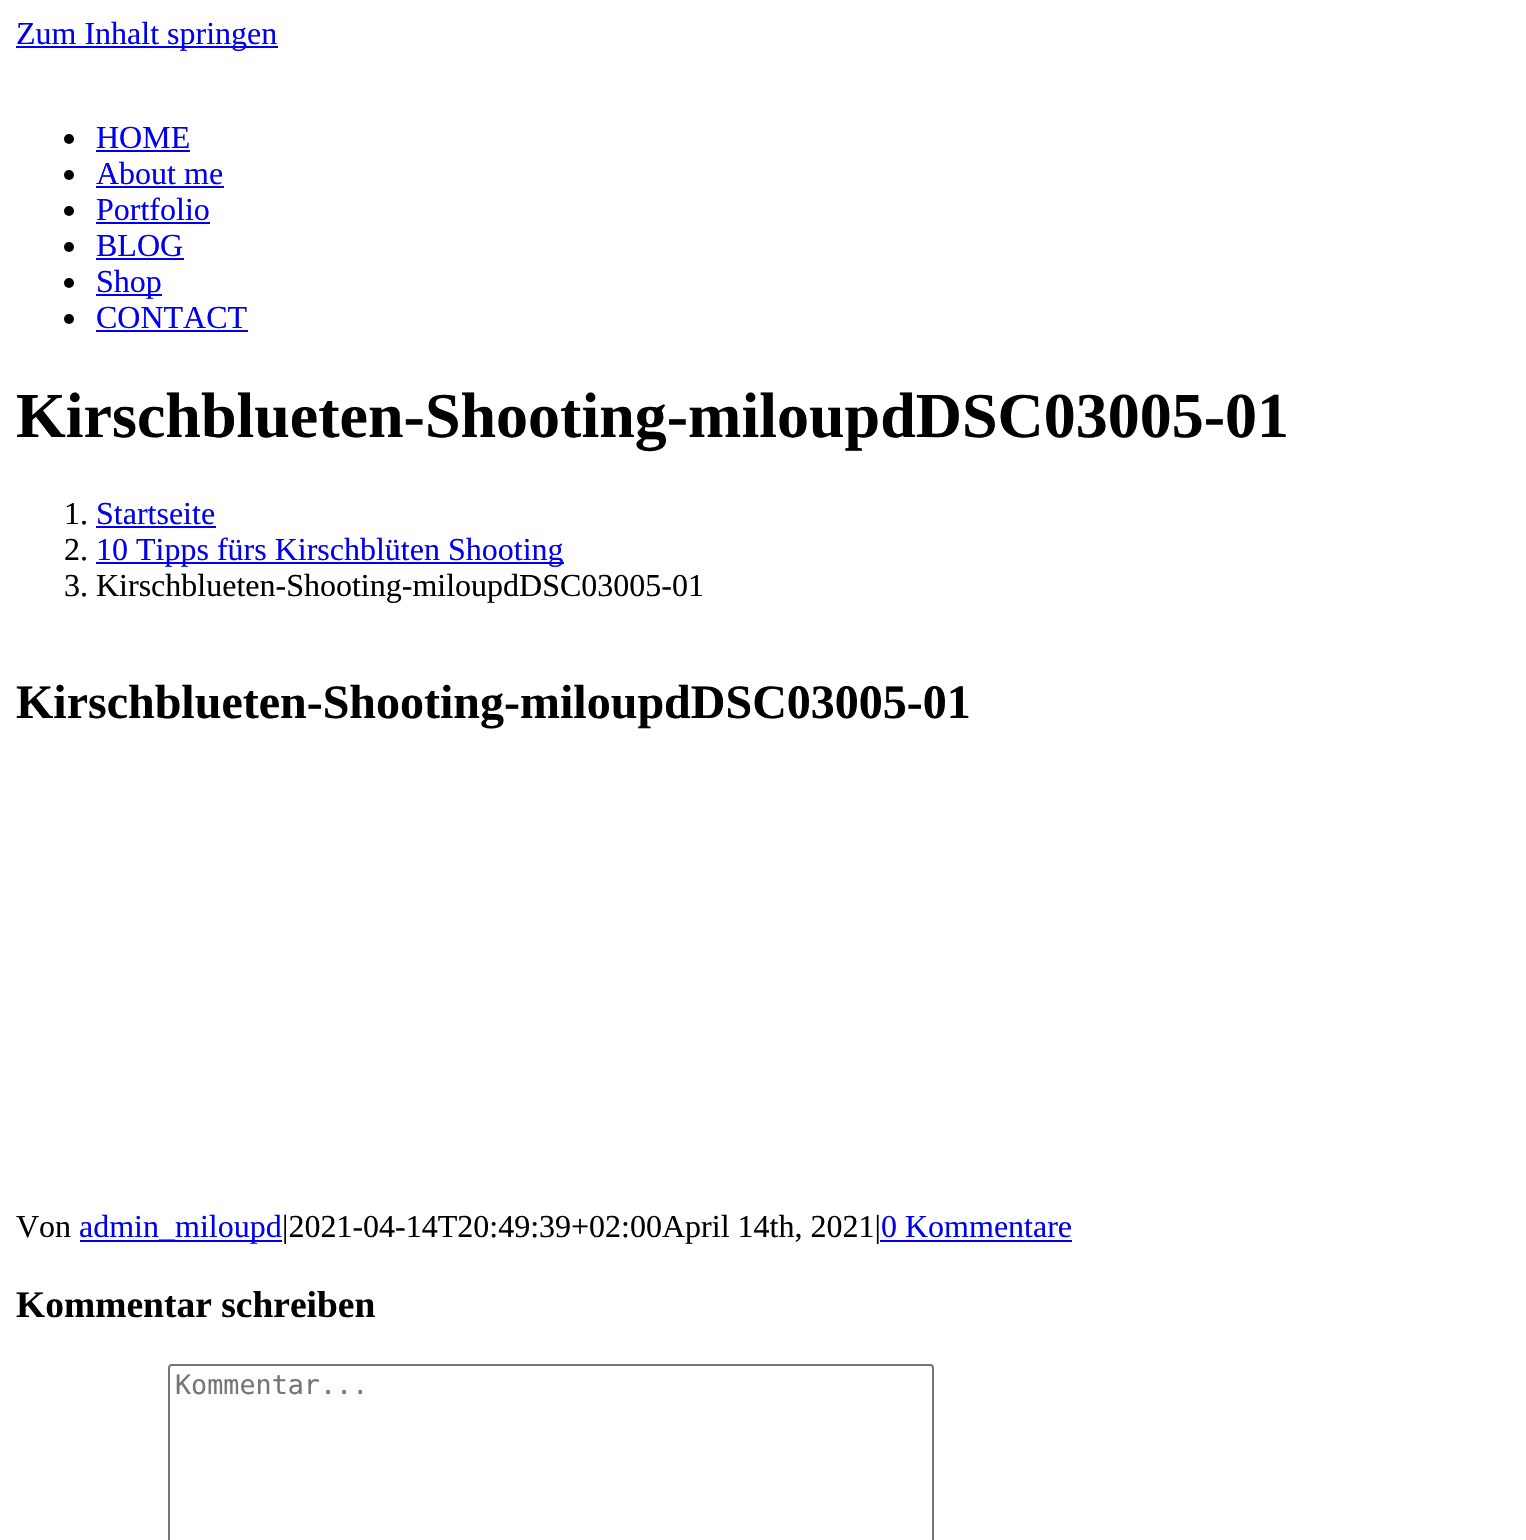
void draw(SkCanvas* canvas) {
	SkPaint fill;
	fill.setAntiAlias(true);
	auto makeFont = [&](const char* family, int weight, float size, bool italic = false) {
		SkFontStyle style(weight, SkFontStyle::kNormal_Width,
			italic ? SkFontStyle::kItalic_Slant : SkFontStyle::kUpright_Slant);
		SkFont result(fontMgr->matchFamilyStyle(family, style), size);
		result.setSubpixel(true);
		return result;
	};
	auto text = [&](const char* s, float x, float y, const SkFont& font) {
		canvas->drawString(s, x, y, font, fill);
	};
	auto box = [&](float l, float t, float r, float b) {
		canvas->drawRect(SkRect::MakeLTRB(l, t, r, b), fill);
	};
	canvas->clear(0xFFFFFFFF);
	fill.setColor(0xFF0000EE);
	box(16, 46, 278, 48);
	fill.setColor(0xFF000000);
	canvas->drawCircle(69, 139, 5, fill);
	fill.setColor(0xFF0000EE);
	box(96, 150, 190, 152);
	fill.setColor(0xFF000000);
	canvas->drawCircle(69, 175, 5, fill);
	fill.setColor(0xFF0000EE);
	box(96, 186, 224, 188);
	fill.setColor(0xFF000000);
	canvas->drawCircle(69, 211, 5, fill);
	fill.setColor(0xFF0000EE);
	box(96, 222, 210, 224);
	fill.setColor(0xFF000000);
	canvas->drawCircle(69, 247, 5, fill);
	fill.setColor(0xFF0000EE);
	box(96, 258, 184, 260);
	fill.setColor(0xFF000000);
	canvas->drawCircle(69, 283, 5, fill);
	fill.setColor(0xFF0000EE);
	box(96, 294, 162, 296);
	fill.setColor(0xFF000000);
	canvas->drawCircle(69, 319, 5, fill);
	fill.setColor(0xFF0000EE);
	box(96, 330, 248, 332);
	box(96, 526, 216, 528);
	box(96, 562, 564, 564);
	box(80, 1240, 282, 1242);
	box(880, 1240, 1072, 1242);
	fill.setStyle(SkPaint::kStroke_Style);
	fill.setStrokeWidth(2);
	fill.setColor(0xFF767676);
	canvas->drawRoundRect(SkRect::MakeLTRB(169, 1365, 933, 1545), 3, 3, fill);
	auto font1 = makeFont("Liberation Serif", 400, 32);
	fill.setStyle(SkPaint::kFill_Style);
	fill.setColor(0xFF0000EE);
	text("Zum Inhalt springen", 16, 44, font1);
	text("HOME", 96, 148, font1);
	text("About me", 96, 184, font1);
	text("Portfolio", 96, 220, font1);
	text("BLOG", 96, 256, font1);
	text("Shop", 96, 292, font1);
	text("CONTACT", 96, 328, font1);
	auto font2 = makeFont("Liberation Serif", 700, 64);
	fill.setColor(0xFF000000);
	text("Kirschblueten-Shooting-miloupdDSC03005-01", 16, 437, font2);
	text("1.", 64, 524, font1);
	fill.setColor(0xFF0000EE);
	text("Startseite", 96, 524, font1);
	fill.setColor(0xFF000000);
	text("2.", 64, 560, font1);
	fill.setColor(0xFF0000EE);
	text("10 Tipps fürs Kirschblüten Shooting", 96, 560, font1);
	fill.setColor(0xFF000000);
	text("3. Kirschblueten-Shooting-miloupdDSC03005-01", 64, 596, font1);
	auto font3 = makeFont("Liberation Serif", 700, 48);
	text("Kirschblueten-Shooting-miloupdDSC03005-01", 16, 718, font3);
	text("Von", 16, 1237, font1);
	fill.setColor(0xFF0000EE);
	text("admin_miloupd", 79, 1237, font1);
	fill.setColor(0xFF000000);
	text("|2021-04-14T20:49:39+02:00April 14th, 2021|", 282, 1237, font1);
	fill.setColor(0xFF0000EE);
	text("0 Kommentare", 881, 1237, font1);
	auto font4 = makeFont("Liberation Serif", 700, 37.5f);
	fill.setColor(0xFF000000);
	text("Kommentar schreiben", 16, 1317, font4);
	auto font5 = makeFont("DejaVu Sans Mono", 400, 26.75f);
	fill.setColor(0xFF757575);
	text("Kommentar...", 175, 1394, font5);
}
